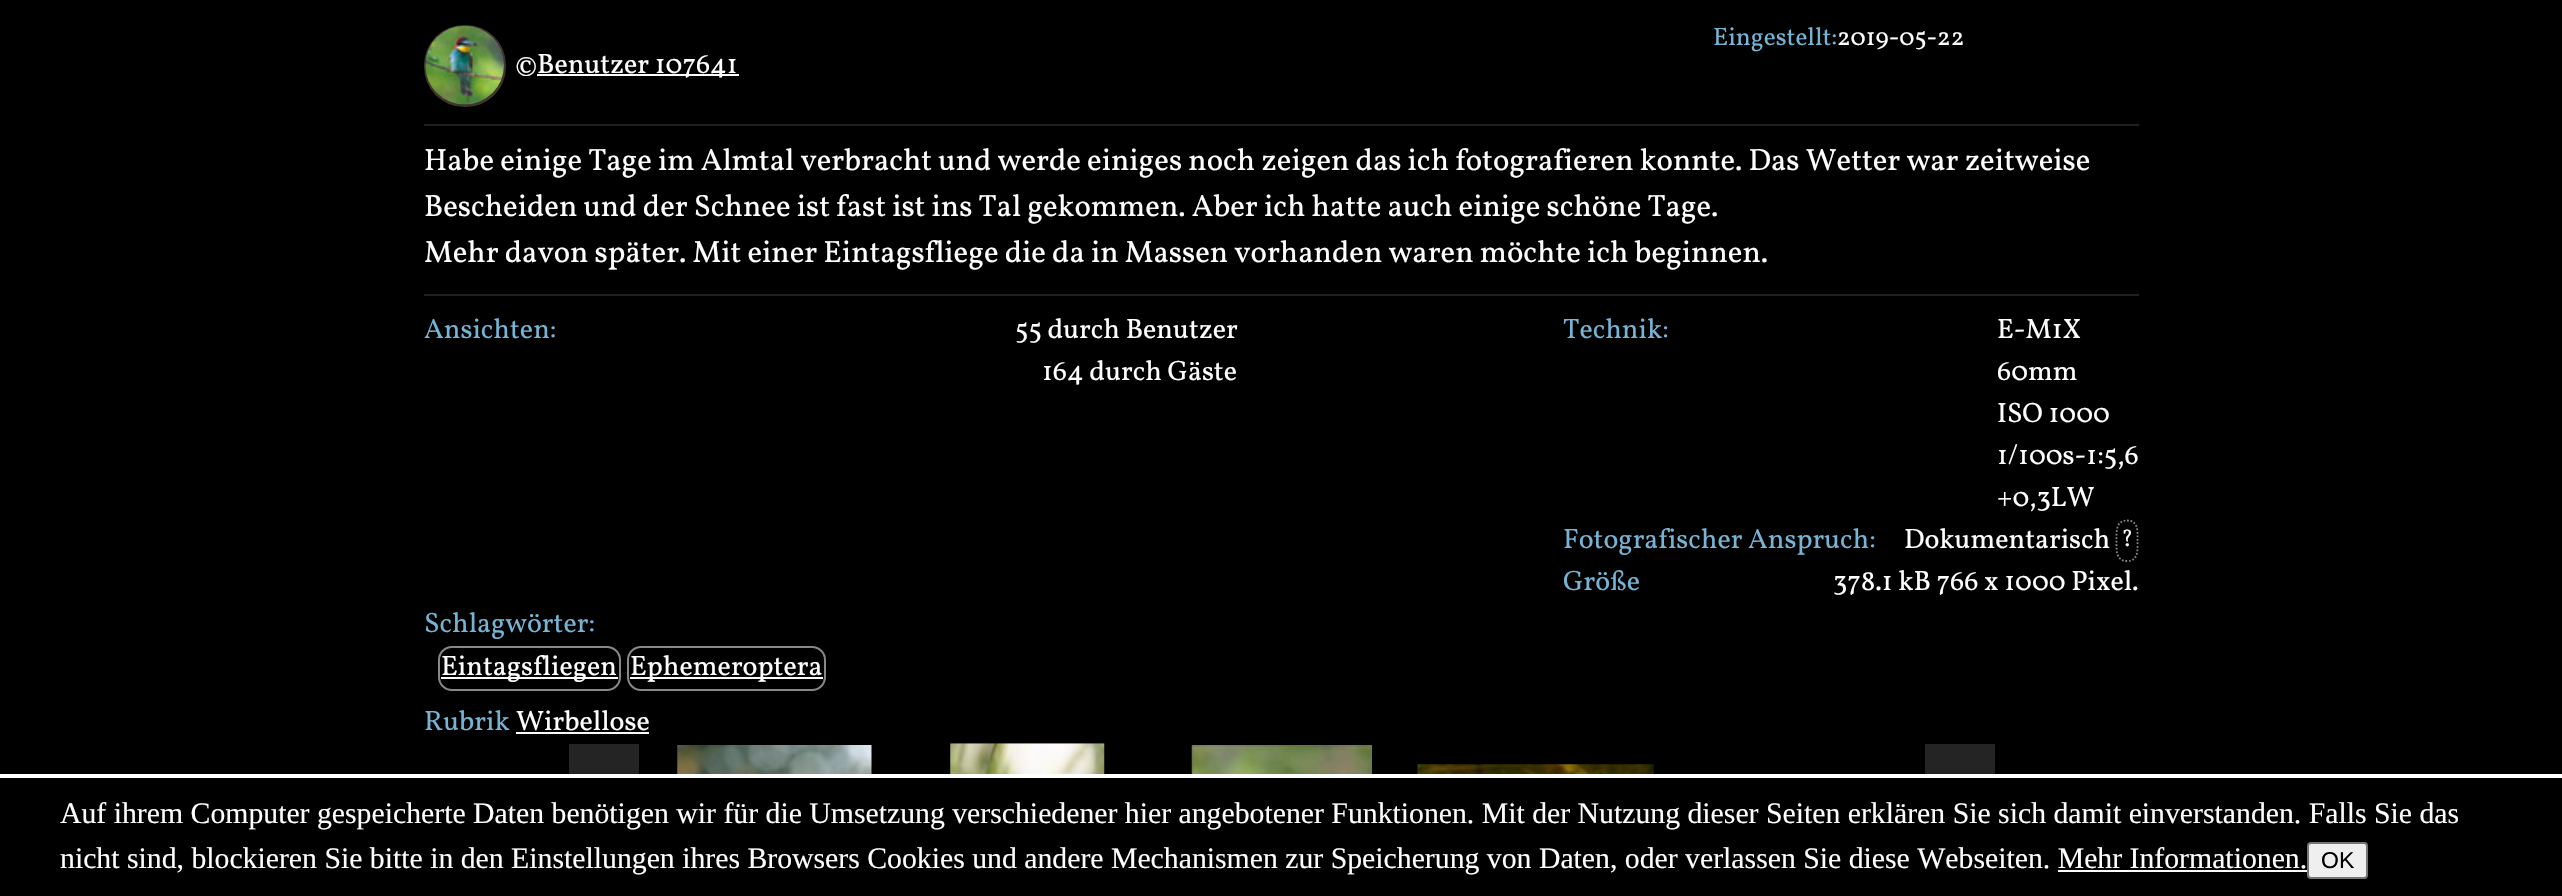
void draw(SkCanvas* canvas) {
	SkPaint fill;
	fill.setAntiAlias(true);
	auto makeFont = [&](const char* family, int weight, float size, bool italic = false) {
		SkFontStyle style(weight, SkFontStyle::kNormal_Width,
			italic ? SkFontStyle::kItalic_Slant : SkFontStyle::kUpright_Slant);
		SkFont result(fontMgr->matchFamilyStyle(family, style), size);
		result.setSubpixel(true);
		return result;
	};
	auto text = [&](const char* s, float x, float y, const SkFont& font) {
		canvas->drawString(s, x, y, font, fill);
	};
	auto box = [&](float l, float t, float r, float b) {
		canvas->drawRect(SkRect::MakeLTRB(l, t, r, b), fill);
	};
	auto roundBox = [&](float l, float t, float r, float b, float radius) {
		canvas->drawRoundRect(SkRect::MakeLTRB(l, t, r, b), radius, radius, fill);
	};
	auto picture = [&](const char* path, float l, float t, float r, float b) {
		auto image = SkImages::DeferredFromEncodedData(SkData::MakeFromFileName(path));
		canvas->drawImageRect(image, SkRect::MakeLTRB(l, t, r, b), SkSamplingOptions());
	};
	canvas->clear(0xFF000000);
	fill.setColor(0xFF403430);
	roundBox(424, 25, 506, 107, 40);
	picture("image0.png", 425, 25, 504, 105);
	fill.setColor(0xFFFFFFFF);
	box(537, 74, 739, 76);
	fill.setColor(0xFF222222);
	box(424, 124, 2139, 126);
	box(424, 294, 2139, 296);
	fill.setStyle(SkPaint::kStroke_Style);
	fill.setStrokeWidth(1.8f);
	fill.setColor(0xFF888888);
	fill.setPathEffect(SkDashPathEffect::Make({{1.75f, 1.75f}}, 0));
	canvas->drawPath(SkPathBuilder().moveTo(2127, 520.5f).cubicTo(2139, 520.5f, 2137.5f, 532.5f, 2137.5f, 541).cubicTo(2137.5f, 549, 2139, 561, 2127, 561).cubicTo(2115.5f, 561, 2116.5f, 549, 2116.5f, 541).cubicTo(2116.5f, 532.5f, 2115.5f, 520.5f, 2127, 520.5f).close().detach(), fill);
	fill.setPathEffect(nullptr);
	fill.setStrokeWidth(2);
	canvas->drawRoundRect(SkRect::MakeLTRB(439, 647, 620, 690), 13, 13, fill);
	fill.setStyle(SkPaint::kFill_Style);
	fill.setColor(0xFFFFFFFF);
	box(441, 677, 618, 679);
	fill.setStyle(SkPaint::kStroke_Style);
	fill.setColor(0xFF888888);
	canvas->drawRoundRect(SkRect::MakeLTRB(628, 647, 825, 690), 13, 13, fill);
	fill.setStyle(SkPaint::kFill_Style);
	fill.setColor(0xFFFFFFFF);
	box(630, 677, 823, 679);
	box(516, 732, 649, 734);
	fill.setColor(0xFF242424);
	box(569, 744, 639, 774);
	picture("image1.png", 677, 745, 872, 774);
	picture("image2.png", 950, 743, 1105, 774);
	picture("image3.png", 1191, 745, 1372, 774);
	picture("image4.png", 1417, 764, 1654, 774);
	box(1925, 744, 1995, 774);
	fill.setColor(0xFFFFFFFF);
	box(0, 774, 2562, 778);
	fill.setColor(0xFFEFEFEF);
	canvas->drawRoundRect(SkRect::MakeLTRB(2308, 843, 2367, 878), 3, 3, fill);
	fill.setStyle(SkPaint::kStroke_Style);
	fill.setColor(0xFF767676);
	canvas->drawRoundRect(SkRect::MakeLTRB(2308, 843, 2367, 878), 3, 3, fill);
	fill.setStyle(SkPaint::kFill_Style);
	fill.setColor(0xFFFFFFFF);
	box(2058, 870, 2307, 872);
	auto font1 = makeFont("Vollkorn", 400, 25.25f);
	fill.setColor(0xFF76B3D4);
	text("Eingestellt:", 1713, 45, font1);
	fill.setColor(0xFFFFFFFF);
	text("2019-05-22", 1837, 45, font1);
	auto font2 = makeFont("Vollkorn", 400, 28);
	text("©", 515, 73, font2);
	text("Benutzer 107641", 537, 73, font2);
	auto font3 = makeFont("Vollkorn", 400, 30.8f);
	text("Habe einige Tage im Almtal verbracht und werde einiges noch zeigen das ich fotografieren konnte. Das Wetter war zeitweise", 424, 170, font3);
	text("Bescheiden und der Schnee ist fast ist ins Tal gekommen. Aber ich hatte auch einige schöne Tage.", 424, 216, font3);
	text("Mehr davon später. Mit einer Eintagsfliege die da in Massen vorhanden waren möchte ich beginnen.", 424, 262, font3);
	fill.setColor(0xFF76B3D4);
	text("Ansichten:", 424, 338, font2);
	fill.setColor(0xFFFFFFFF);
	text("55 durch Benutzer", 1015, 338, font2);
	text("164 durch Gäste", 1042, 380, font2);
	fill.setColor(0xFF76B3D4);
	text("Technik:", 1563, 338, font2);
	fill.setColor(0xFFFFFFFF);
	text("E-M1X", 1997, 338, font2);
	text("60mm", 1997, 380, font2);
	text("ISO 1000", 1997, 422, font2);
	text("1/100s-1:5,6", 1997, 464, font2);
	text("+0,3LW", 1997, 506, font2);
	fill.setColor(0xFF76B3D4);
	text("Fotografischer Anspruch:", 1563, 548, font2);
	fill.setColor(0xFFFFFFFF);
	text("Dokumentarisch", 1904, 548, font2);
	auto font4 = makeFont("Vollkorn", 400, 23);
	text("?", 2121, 546, font4);
	fill.setColor(0xFF76B3D4);
	text("Größe", 1563, 590, font2);
	fill.setColor(0xFFFFFFFF);
	text("378.1 kB 766 x 1000 Pixel.", 1833, 590, font2);
	fill.setColor(0xFF76B3D4);
	text("Schlagwörter:", 424, 632, font2);
	fill.setColor(0xFFFFFFFF);
	text("Eintagsfliegen", 441, 675, font2);
	text("Ephemeroptera", 630, 675, font2);
	fill.setColor(0xFF76B3D4);
	text("Rubrik", 424, 730, font2);
	fill.setColor(0xFFFFFFFF);
	text("Wirbellose", 516, 730, font2);
	auto font5 = makeFont("Liberation Serif", 400, 29.75f);
	text("Auf ihrem Computer gespeicherte Daten benötigen wir für die Umsetzung verschiedener hier angebotener Funktionen. Mit der Nutzung dieser Seiten erklären Sie sich damit einverstanden. Falls Sie das", 60, 823, font5);
	text("nicht sind, blockieren Sie bitte in den Einstellungen ihres Browsers Cookies und andere Mechanismen zur Speicherung von Daten, oder verlassen Sie diese Webseiten. Mehr Informationen.", 60, 868, font5);
	auto font6 = makeFont("Liberation Sans", 400, 23);
	fill.setColor(0xFF000000);
	text("OK", 2321, 868, font6);
}
